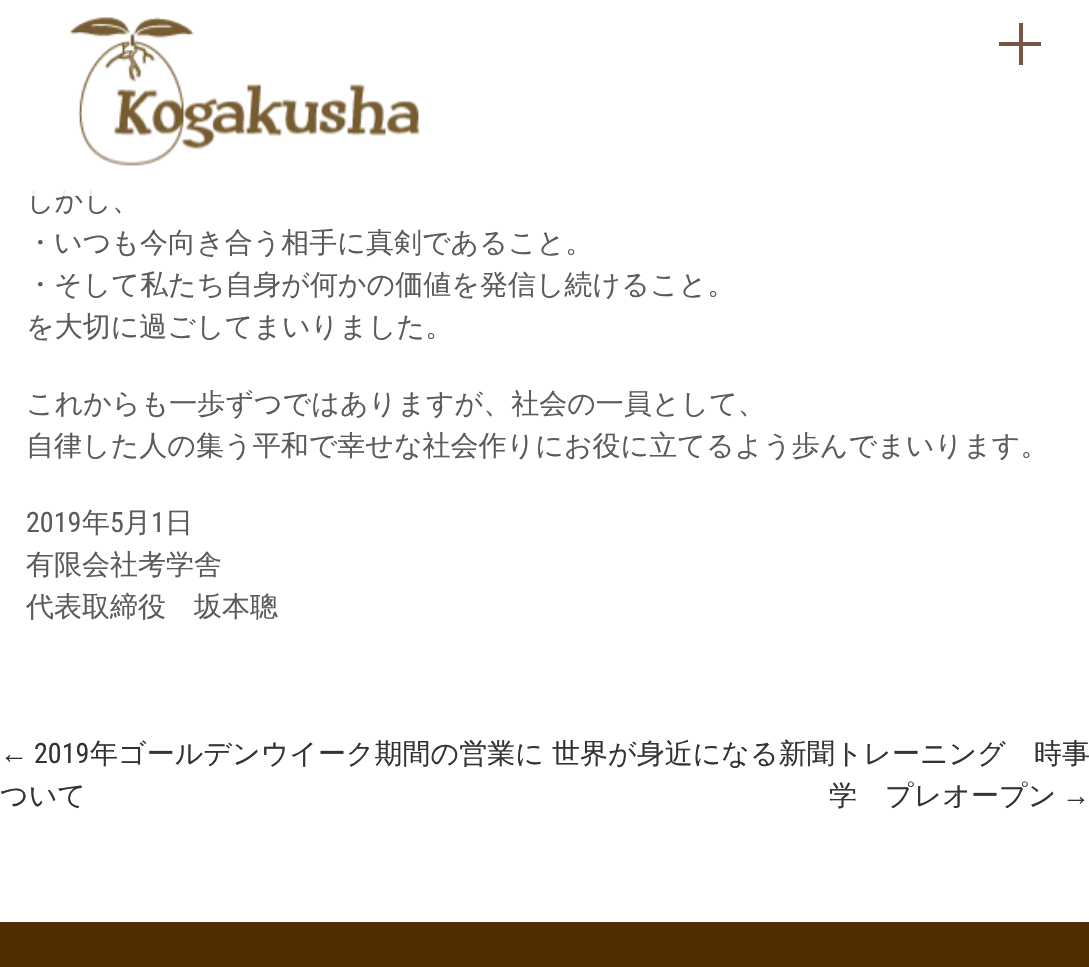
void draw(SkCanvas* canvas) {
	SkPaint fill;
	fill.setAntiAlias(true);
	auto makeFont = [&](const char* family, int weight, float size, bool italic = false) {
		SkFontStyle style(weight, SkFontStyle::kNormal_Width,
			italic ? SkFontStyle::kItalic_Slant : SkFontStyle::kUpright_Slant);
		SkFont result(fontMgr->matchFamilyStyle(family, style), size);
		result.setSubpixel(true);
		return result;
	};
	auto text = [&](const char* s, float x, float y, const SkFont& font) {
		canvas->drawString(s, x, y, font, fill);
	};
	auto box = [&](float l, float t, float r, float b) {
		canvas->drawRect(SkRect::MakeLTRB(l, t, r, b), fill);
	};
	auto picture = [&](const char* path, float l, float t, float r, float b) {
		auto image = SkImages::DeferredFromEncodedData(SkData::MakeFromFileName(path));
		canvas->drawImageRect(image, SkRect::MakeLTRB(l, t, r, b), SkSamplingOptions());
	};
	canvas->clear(0xFFFFFFFF);
	picture("image0.png", 70, 17, 420, 166);
	fill.setColor(0xFF795548);
	box(999, 42, 1041, 46);
	box(1019, 23, 1023, 65);
	fill.setColor(0xFF512E00);
	box(0, 922, 1089, 967);
	auto font1 = makeFont("WenQuanYi Zen Hei", 500, 28);
	fill.setColor(0xFF5B5B5B);
	text("しかし、", 26, 210, font1);
	fill.setColor(0xE3FFFFFF);
	box(32, 190, 93, 196);
	fill.setColor(0xFF5B5B5B);
	text("・いつも今向き合う相手に真剣であること。", 26, 252, font1);
	text("・そして私たち自身が何かの価値を発信し続けること。", 26, 294, font1);
	text("を大切に過ごしてまいりました。", 26, 336, font1);
	text("これからも一歩ずつではありますが、社会の一員として、", 26, 413, font1);
	text("自律した人の集う平和で幸せな社会作りにお役に立てるよう歩んでまいります。", 26, 455, font1);
	auto font2 = makeFont("Roboto Condensed", 400, 28);
	text("2019", 26, 532, font2);
	text("年", 82, 532, font1);
	text("5", 110, 532, font2);
	text("月", 123, 532, font1);
	text("1", 151, 532, font2);
	text("日", 165, 532, font1);
	text("有限会社考学舎", 26, 574, font1);
	text("代表取締役　坂本聰", 26, 616, font1);
	auto font3 = makeFont("Liberation Serif", 400, 28);
	fill.setColor(0xFF333333);
	text("←", 0, 763, font3);
	text("2019", 34, 763, font2);
	text("年ゴールデンウイーク期間の営業に", 90, 763, font1);
	text("ついて", 0, 805, font1);
	text("世界が身近になる新聞トレーニング　時事", 552, 763, font1);
	text("学　プレオープン", 829, 805, font1);
	text("→", 1062, 805, font3);
}
